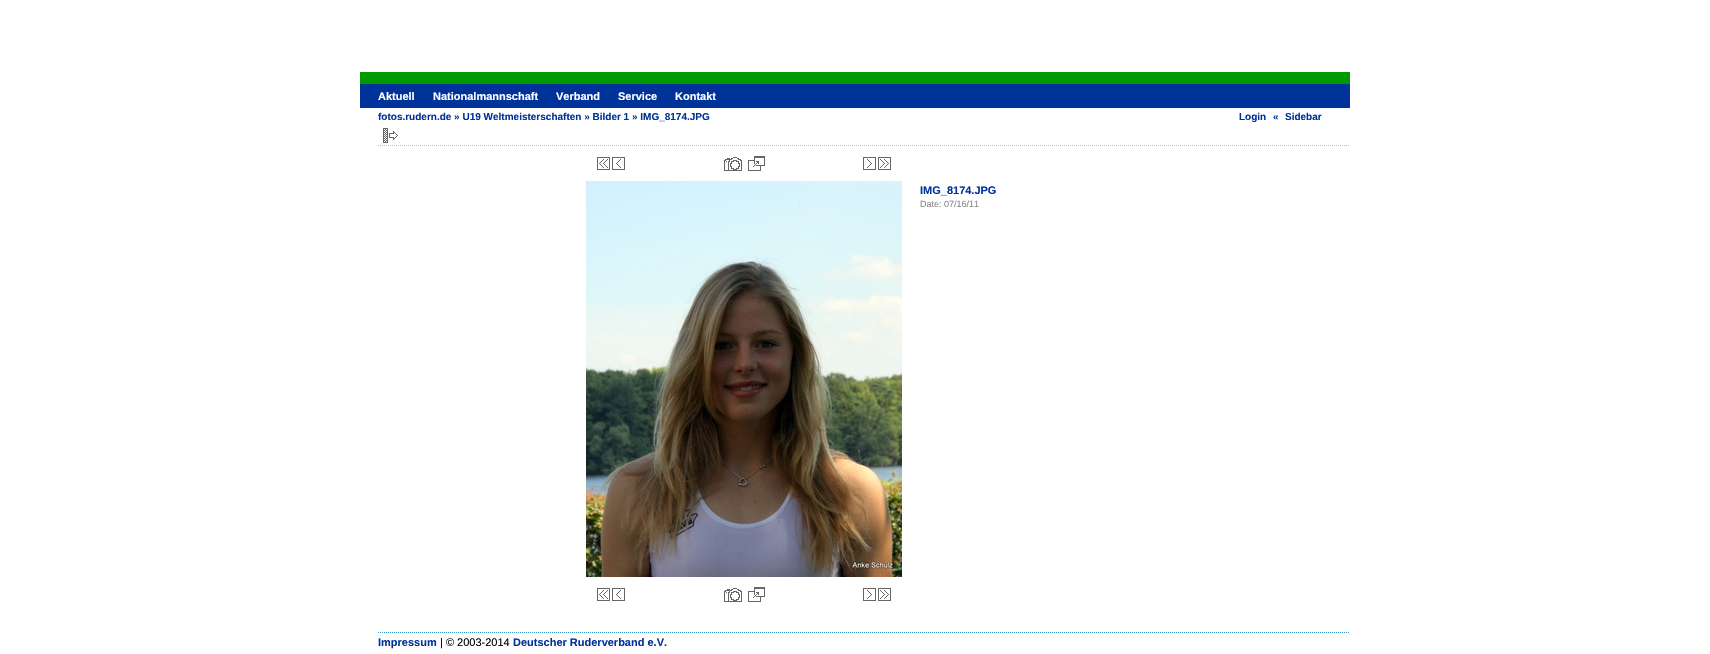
void draw(SkCanvas* canvas) {
	SkPaint fill;
	fill.setAntiAlias(true);
	auto makeFont = [&](const char* family, int weight, float size, bool italic = false) {
		SkFontStyle style(weight, SkFontStyle::kNormal_Width,
			italic ? SkFontStyle::kItalic_Slant : SkFontStyle::kUpright_Slant);
		SkFont result(fontMgr->matchFamilyStyle(family, style), size);
		result.setSubpixel(true);
		return result;
	};
	auto text = [&](const char* s, float x, float y, const SkFont& font) {
		canvas->drawString(s, x, y, font, fill);
	};
	auto box = [&](float l, float t, float r, float b) {
		canvas->drawRect(SkRect::MakeLTRB(l, t, r, b), fill);
	};
	auto picture = [&](const char* path, float l, float t, float r, float b) {
		auto image = SkImages::DeferredFromEncodedData(SkData::MakeFromFileName(path));
		canvas->drawImageRect(image, SkRect::MakeLTRB(l, t, r, b), SkSamplingOptions());
	};
	canvas->clear(0xFFFFFFFF);
	fill.setColor(0xFF003399);
	box(360, 84, 1350, 108);
	fill.setColor(0xFF009900);
	box(360, 72, 1350, 84);
	fill.setStyle(SkPaint::kStroke_Style);
	fill.setStrokeWidth(1);
	fill.setColor(0xFFC0C0C0);
	fill.setPathEffect(SkDashPathEffect::Make({{1, 1}}, 0));
	canvas->drawPath(SkPathBuilder().moveTo(378, 145.5f).lineTo(1350, 145.5f).detach(), fill);
	fill.setPathEffect(nullptr);
	picture("image0.png", 383, 128, 398, 143);
	picture("image1.png", 597, 157, 610, 170);
	picture("image2.png", 612, 157, 625, 170);
	picture("image3.png", 724, 157, 742, 171);
	picture("image4.png", 748, 156, 765, 171);
	picture("image5.png", 863, 157, 876, 170);
	picture("image6.png", 878, 157, 891, 170);
	picture("image7.png", 586, 181, 902, 577);
	picture("image1.png", 597, 588, 610, 601);
	picture("image2.png", 612, 588, 625, 601);
	picture("image3.png", 724, 588, 742, 602);
	picture("image4.png", 748, 587, 765, 602);
	picture("image5.png", 863, 588, 876, 601);
	picture("image6.png", 878, 588, 891, 601);
	fill.setColor(0xFF3399CC);
	fill.setPathEffect(SkDashPathEffect::Make({{1, 1}}, 0));
	canvas->drawPath(SkPathBuilder().moveTo(378, 632.5f).lineTo(1350, 632.5f).detach(), fill);
	fill.setPathEffect(nullptr);
	auto font1 = makeFont("Liberation Sans", 700, 11);
	fill.setStyle(SkPaint::kFill_Style);
	fill.setColor(0xFFFFFFFF);
	text("Aktuell", 378, 100, font1);
	text("Nationalmannschaft", 433, 100, font1);
	text("Verband", 556, 100, font1);
	text("Service", 618, 100, font1);
	text("Kontakt", 675, 100, font1);
	auto font2 = makeFont("Liberation Sans", 700, 10);
	fill.setColor(0xFF003399);
	text("fotos.rudern.de » U19 Weltmeisterschaften » Bilder 1 » IMG_8174.JPG", 378, 120, font2);
	text("Login", 1239, 120, font2);
	text("«", 1273, 120, font2);
	text("Sidebar", 1285, 120, font2);
	text("IMG_8174.JPG", 920, 194, font1);
	auto font3 = makeFont("Liberation Sans", 400, 9);
	fill.setColor(0xFF888888);
	text("Date: 07/16/11", 920, 207, font3);
	fill.setColor(0xFF003399);
	text("Impressum", 378, 646, font1);
	auto font4 = makeFont("Liberation Sans", 400, 11);
	fill.setColor(0xFF000000);
	text("| © 2003-2014", 440, 646, font4);
	fill.setColor(0xFF003399);
	text("Deutscher Ruderverband e.V.", 513, 646, font1);
}
